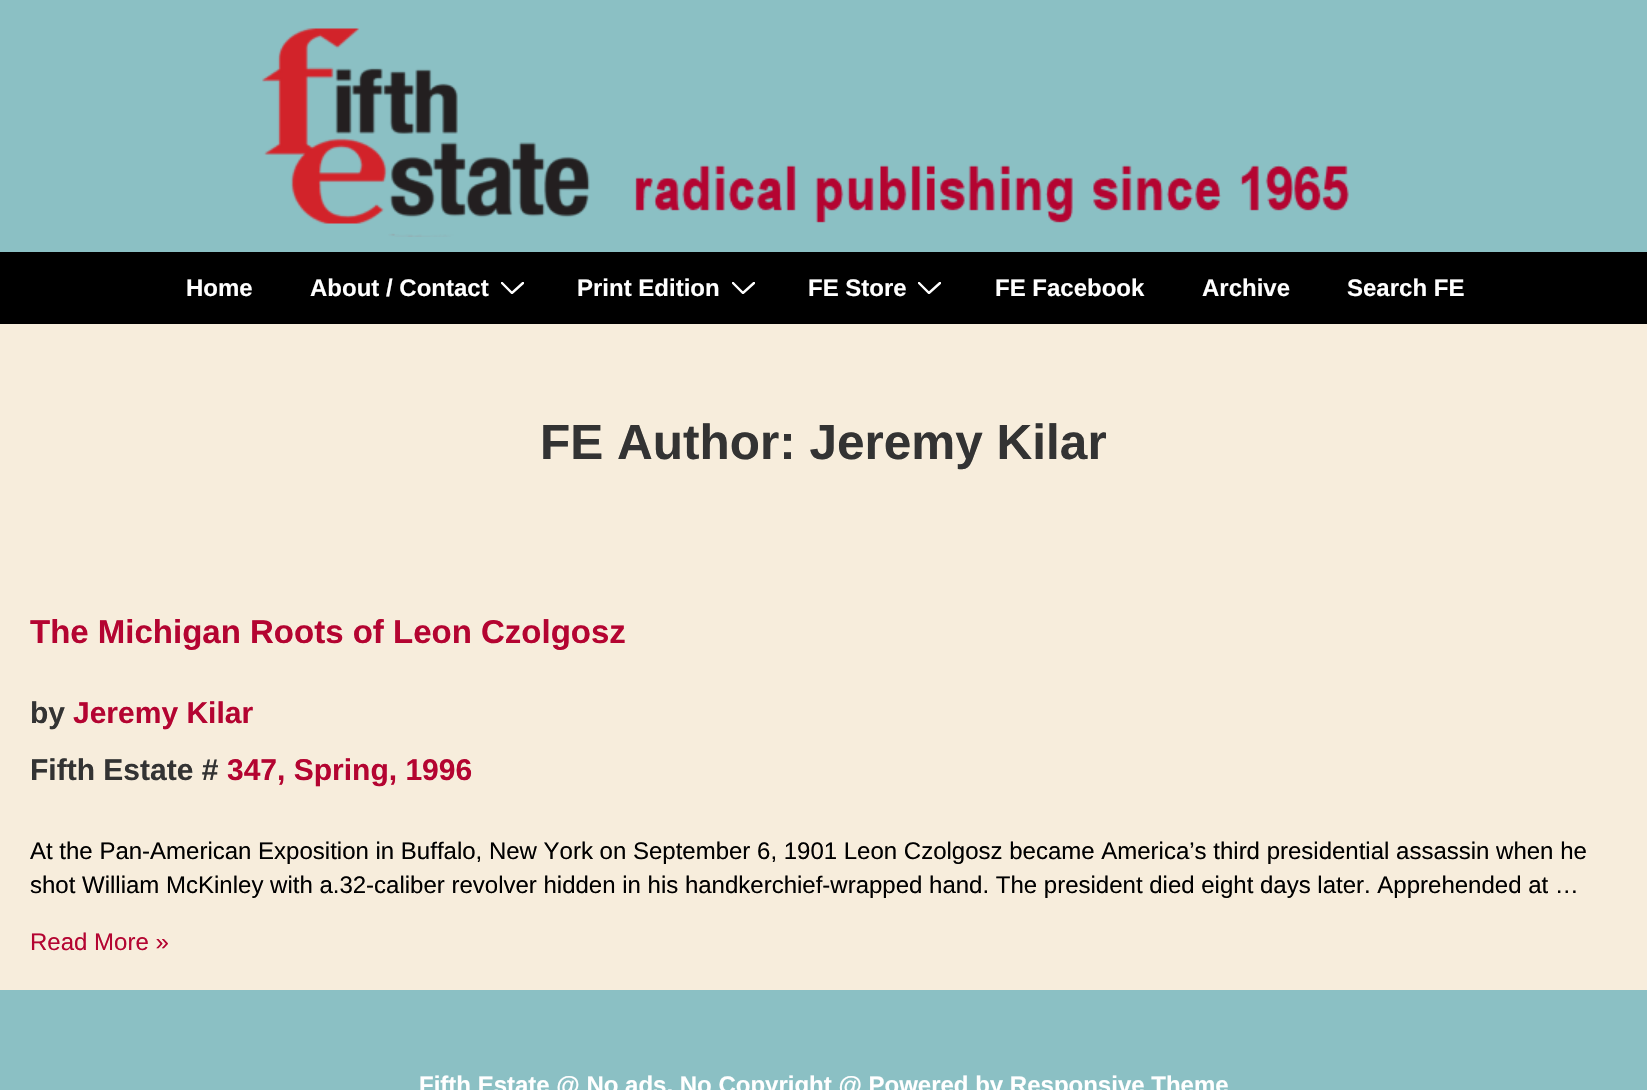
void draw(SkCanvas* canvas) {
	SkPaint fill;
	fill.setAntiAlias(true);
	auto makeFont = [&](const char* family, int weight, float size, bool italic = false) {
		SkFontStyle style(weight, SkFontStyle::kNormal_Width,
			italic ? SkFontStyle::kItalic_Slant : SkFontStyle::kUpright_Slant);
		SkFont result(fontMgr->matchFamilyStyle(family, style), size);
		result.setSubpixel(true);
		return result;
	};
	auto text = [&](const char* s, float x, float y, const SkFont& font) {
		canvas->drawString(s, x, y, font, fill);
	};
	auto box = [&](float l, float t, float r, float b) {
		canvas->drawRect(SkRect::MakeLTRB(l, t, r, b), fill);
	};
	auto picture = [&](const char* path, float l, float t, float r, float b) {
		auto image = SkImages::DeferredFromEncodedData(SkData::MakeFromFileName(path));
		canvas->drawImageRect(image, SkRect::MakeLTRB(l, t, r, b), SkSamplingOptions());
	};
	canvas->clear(0xFF8BC0C4);
	picture("image0.png", 262, 28, 1349, 237);
	fill.setColor(0xFF000000);
	box(0, 252, 1647, 324);
	canvas->save();
	canvas->clipRect(SkRect::MakeLTRB(501, 282, 524, 294));
	fill.setStyle(SkPaint::kStroke_Style);
	fill.setStrokeWidth(2.4f);
	fill.setStrokeCap(SkPaint::kRound_Cap);
	fill.setColor(0xFFFFFFFF);
	canvas->drawPath(SkPathBuilder().moveTo(502, 283).lineTo(512, 293).lineTo(523, 283).detach(), fill);
	canvas->restore();
	canvas->save();
	canvas->clipRect(SkRect::MakeLTRB(732, 282, 755, 294));
	canvas->drawPath(SkPathBuilder().moveTo(733, 283).lineTo(743, 293).lineTo(754, 283).detach(), fill);
	canvas->restore();
	canvas->save();
	canvas->clipRect(SkRect::MakeLTRB(918, 282, 941, 294));
	canvas->drawPath(SkPathBuilder().moveTo(919, 283).lineTo(929, 293).lineTo(940, 283).detach(), fill);
	canvas->restore();
	fill.setStyle(SkPaint::kFill_Style);
	fill.setColor(0xFFF7EDDC);
	box(0, 324, 1647, 990);
	auto font1 = makeFont("Liberation Sans", 700, 24);
	fill.setColor(0xFFFFFFFF);
	text("Home", 186, 296, font1);
	text("About / Contact", 310, 296, font1);
	text("Print Edition", 577, 296, font1);
	text("FE Store", 808, 296, font1);
	text("FE Facebook", 995, 296, font1);
	text("Archive", 1202, 296, font1);
	text("Search FE", 1347, 296, font1);
	auto font2 = makeFont("Liberation Sans", 700, 49.5f);
	fill.setColor(0xFF333333);
	text("FE Author: Jeremy Kilar", 540, 459, font2);
	auto font3 = makeFont("Liberation Sans", 700, 33);
	fill.setColor(0xFFB40431);
	text("The Michigan Roots of Leon Czolgosz", 30, 643, font3);
	auto font4 = makeFont("Liberation Sans", 700, 30);
	fill.setColor(0xFF333333);
	text("by", 30, 723, font4);
	fill.setColor(0xFFB40431);
	text("Jeremy Kilar", 73, 723, font4);
	fill.setColor(0xFF333333);
	text("Fifth Estate #", 30, 780, font4);
	fill.setColor(0xFFB40431);
	text("347, Spring, 1996", 227, 780, font4);
	auto font5 = makeFont("Liberation Sans", 400, 24);
	fill.setColor(0xFF000000);
	text("At the Pan-American Exposition in Buffalo, New York on September 6, 1901 Leon Czolgosz became America’s third presidential assassin when he", 30, 859, font5);
	text("shot William McKinley with a.32-caliber revolver hidden in his handkerchief-wrapped hand. The president died eight days later. Apprehended at …", 30, 893, font5);
	fill.setColor(0xFFB40431);
	text("Read More »", 30, 950, font5);
	fill.setColor(0xFFFFFFFF);
	text("Fifth Estate @ No ads, No Copyright @ Powered by Responsive Theme", 419, 1093, font1);
}
